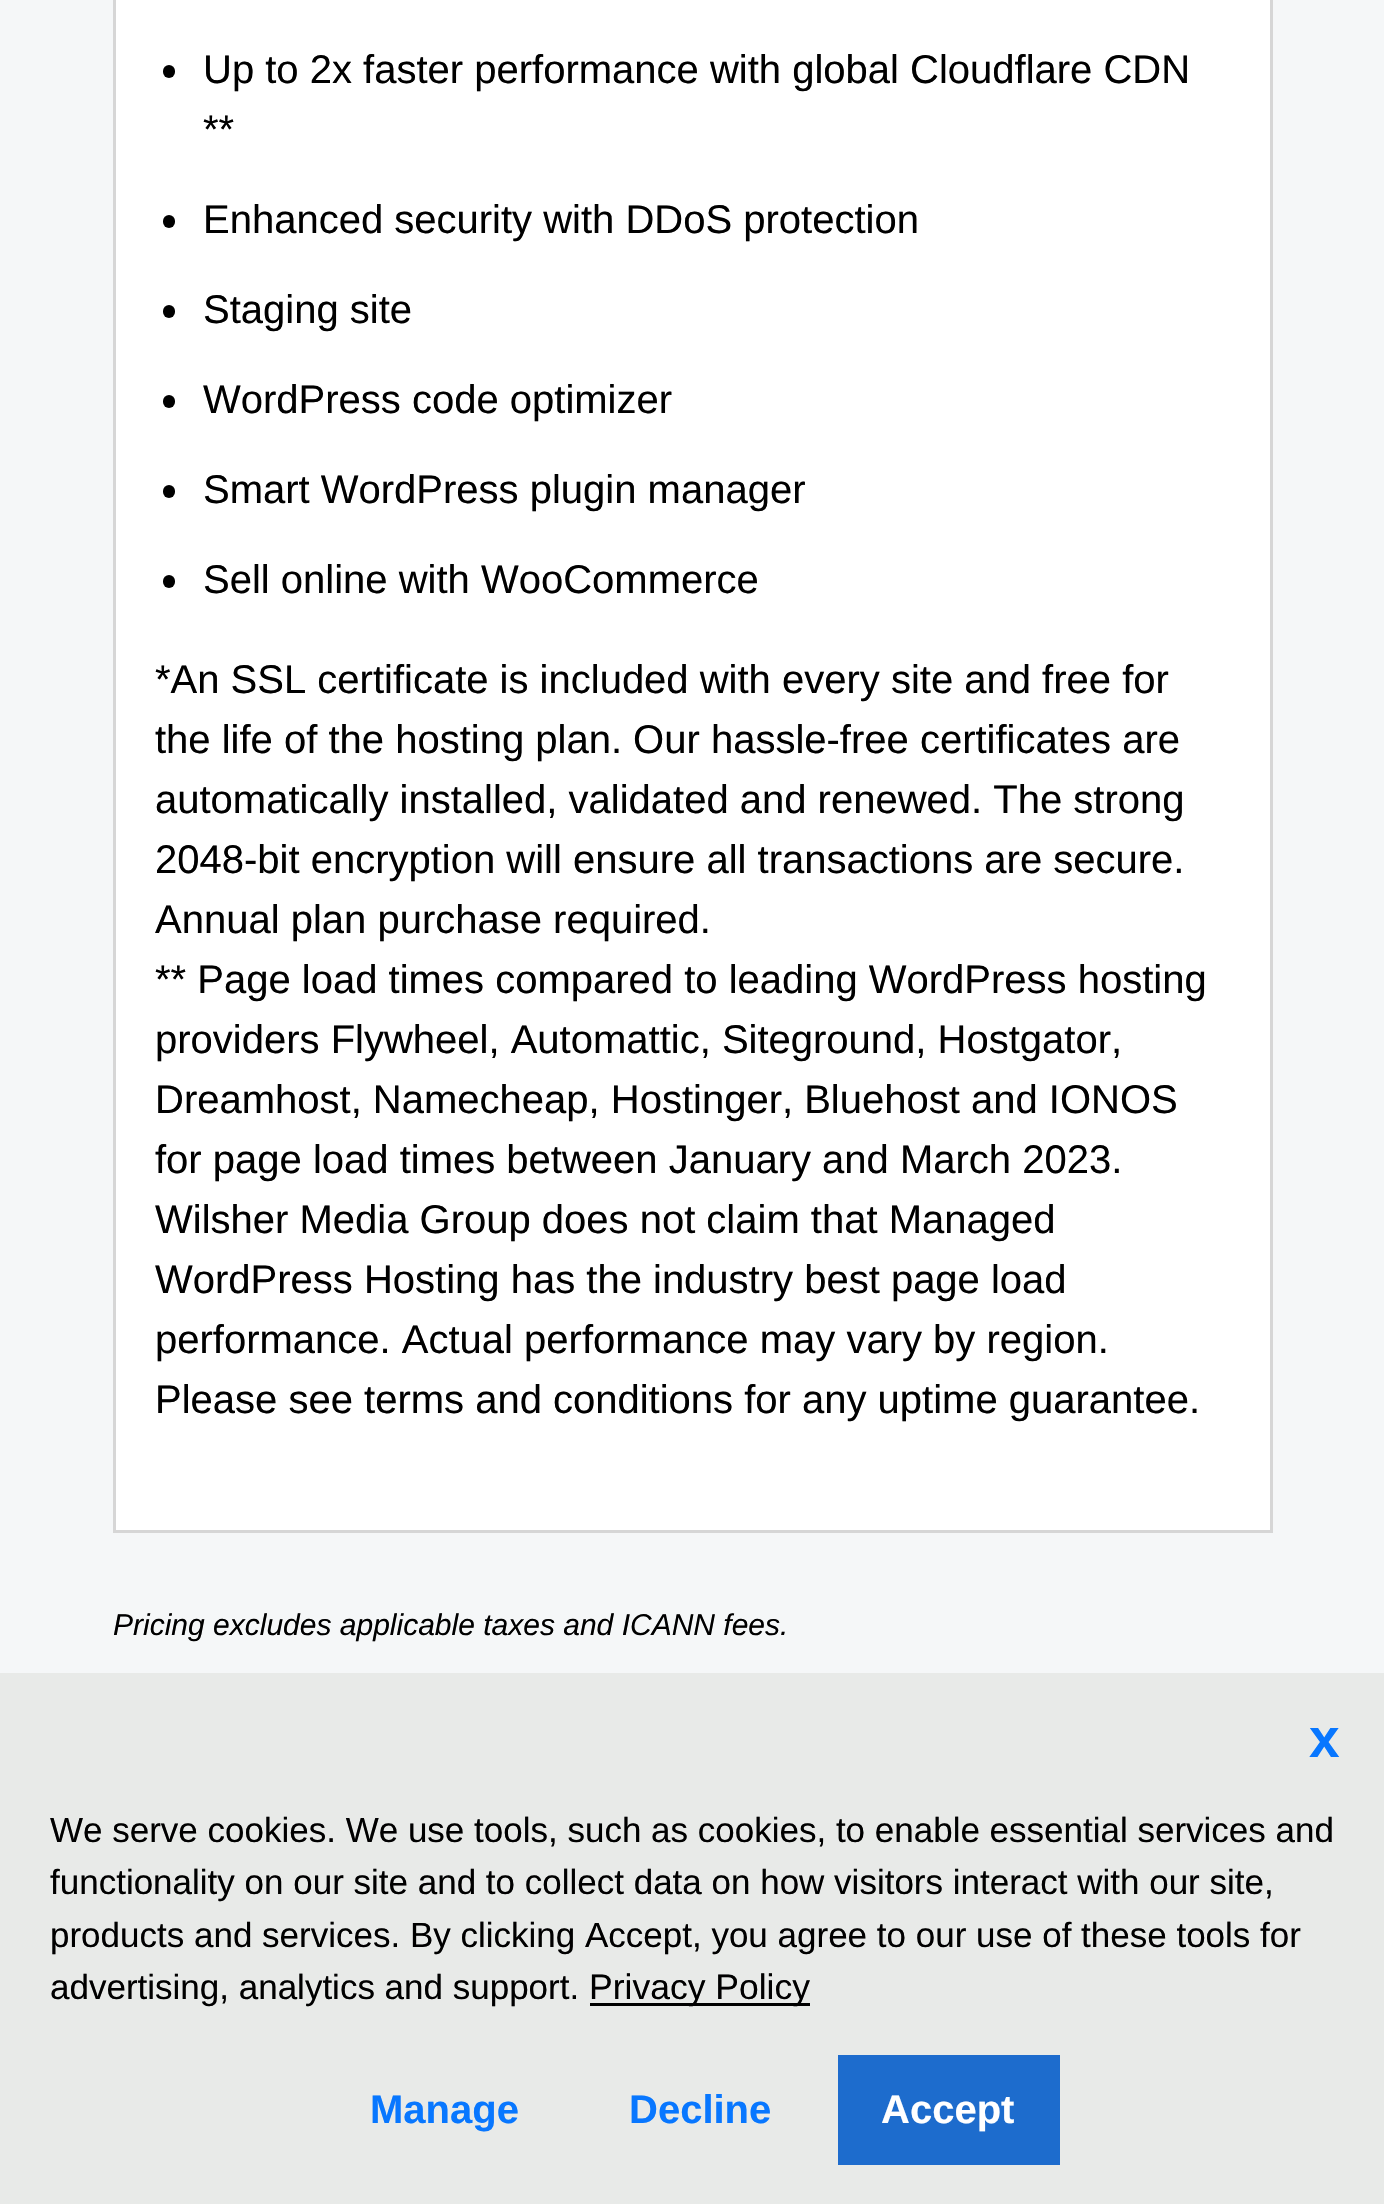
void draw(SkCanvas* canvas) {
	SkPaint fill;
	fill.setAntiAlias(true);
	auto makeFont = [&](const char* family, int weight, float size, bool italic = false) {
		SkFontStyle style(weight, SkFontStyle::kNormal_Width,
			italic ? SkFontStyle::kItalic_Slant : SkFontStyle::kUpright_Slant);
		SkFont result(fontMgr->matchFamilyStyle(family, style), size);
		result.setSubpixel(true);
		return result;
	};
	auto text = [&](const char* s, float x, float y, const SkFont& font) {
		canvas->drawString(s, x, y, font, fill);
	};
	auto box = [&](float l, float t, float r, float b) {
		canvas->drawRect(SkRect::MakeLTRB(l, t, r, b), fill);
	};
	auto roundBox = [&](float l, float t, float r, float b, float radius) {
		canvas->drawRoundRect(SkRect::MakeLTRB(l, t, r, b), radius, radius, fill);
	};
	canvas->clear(0xFFF5F7F8);
	fill.setColor(0xFFFFFFFF);
	canvas->drawRect(SkRect::MakeLTRB(114.5f, -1.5f, 1271.5f, 1531.5f), fill);
	fill.setStyle(SkPaint::kStroke_Style);
	fill.setStrokeWidth(3);
	fill.setColor(0xFFD6D6D6);
	canvas->drawRect(SkRect::MakeLTRB(114.5f, -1.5f, 1271.5f, 1531.5f), fill);
	fill.setStyle(SkPaint::kFill_Style);
	fill.setColor(0xFF000000);
	roundBox(163, 65, 175, 78, 6);
	roundBox(163, 215, 175, 228, 6);
	roundBox(163, 305, 175, 318, 6);
	roundBox(163, 395, 175, 408, 6);
	roundBox(163, 485, 175, 498, 6);
	roundBox(163, 575, 175, 588, 6);
	fill.setColor(0xFFE8EAE8);
	box(0, 1673, 1384, 2204);
	fill.setColor(0xFF000000);
	box(590, 2003, 810, 2006);
	fill.setColor(0xFF1D6CCD);
	box(838, 2055, 1060, 2165);
	auto font1 = makeFont("Liberation Sans", 400, 40);
	fill.setColor(0xFF000000);
	text("Up to 2x faster performance with global Cloudflare CDN", 203, 83, font1);
	text("**", 203, 143, font1);
	text("Enhanced security with DDoS protection", 203, 233, font1);
	text("Staging site", 203, 323, font1);
	text("WordPress code optimizer", 203, 413, font1);
	text("Smart WordPress plugin manager", 203, 503, font1);
	text("Sell online with WooCommerce", 203, 593, font1);
	text("*An SSL certificate is included with every site and free for", 155, 693, font1);
	text("the life of the hosting plan. Our hassle-free certificates are", 155, 753, font1);
	text("automatically installed, validated and renewed. The strong", 155, 813, font1);
	text("2048-bit encryption will ensure all transactions are secure.", 155, 873, font1);
	text("Annual plan purchase required.", 155, 933, font1);
	text("** Page load times compared to leading WordPress hosting", 155, 993, font1);
	text("providers Flywheel, Automattic, Siteground, Hostgator,", 155, 1053, font1);
	text("Dreamhost, Namecheap, Hostinger, Bluehost and IONOS", 155, 1113, font1);
	text("for page load times between January and March 2023.", 155, 1173, font1);
	text("Wilsher Media Group does not claim that Managed", 155, 1233, font1);
	text("WordPress Hosting has the industry best page load", 155, 1293, font1);
	text("performance. Actual performance may vary by region.", 155, 1353, font1);
	text("Please see terms and conditions for any uptime guarantee.", 155, 1413, font1);
	auto font2 = makeFont("Liberation Sans", 400, 30, true);
	text("Pricing excludes applicable taxes and ICANN fees.", 113, 1635, font2);
	auto font3 = makeFont("Liberation Sans", 700, 55);
	fill.setColor(0xFF0877FF);
	text("x", 1309, 1757, font3);
	auto font4 = makeFont("Liberation Sans", 400, 35);
	fill.setColor(0xFF000000);
	text("We serve cookies. We use tools, such as cookies, to enable essential services and", 50, 1842, font4);
	text("functionality on our site and to collect data on how visitors interact with our site,", 50, 1894, font4);
	text("products and services. By clicking Accept, you agree to our use of these tools for", 50, 1947, font4);
	text("advertising, analytics and support.", 50, 1999, font4);
	auto font5 = makeFont("Liberation Sans", 400, 35.5f);
	text("Privacy Policy", 589, 1999, font5);
	auto font6 = makeFont("Liberation Sans", 700, 40);
	fill.setColor(0xFF0877FF);
	text("Manage", 370, 2123, font6);
	text("Decline", 629, 2123, font6);
	fill.setColor(0xFFFFFFFF);
	text("Accept", 881, 2123, font6);
}
